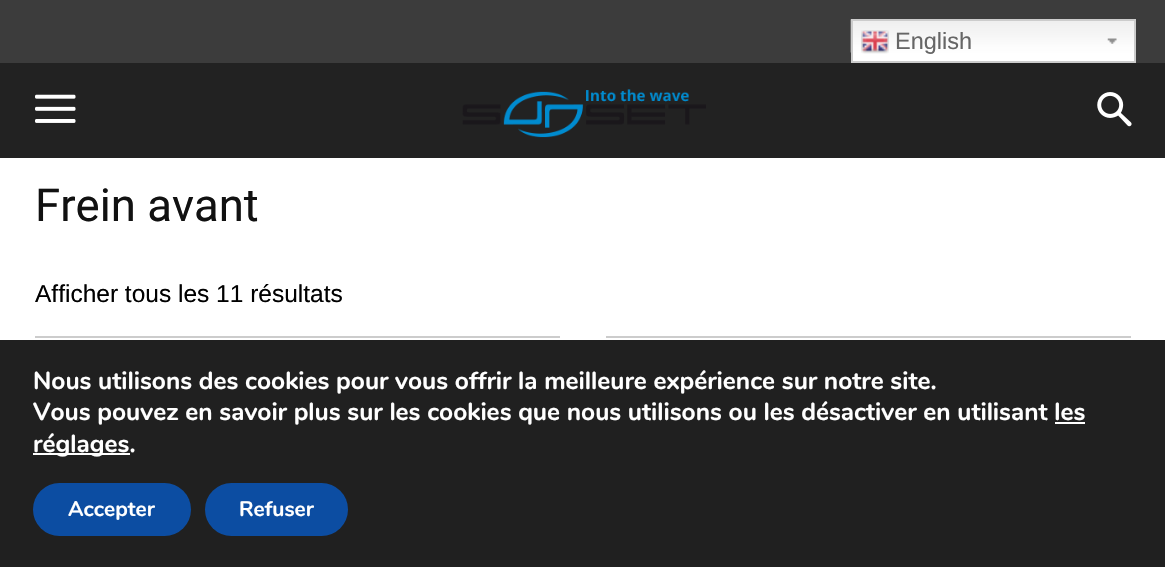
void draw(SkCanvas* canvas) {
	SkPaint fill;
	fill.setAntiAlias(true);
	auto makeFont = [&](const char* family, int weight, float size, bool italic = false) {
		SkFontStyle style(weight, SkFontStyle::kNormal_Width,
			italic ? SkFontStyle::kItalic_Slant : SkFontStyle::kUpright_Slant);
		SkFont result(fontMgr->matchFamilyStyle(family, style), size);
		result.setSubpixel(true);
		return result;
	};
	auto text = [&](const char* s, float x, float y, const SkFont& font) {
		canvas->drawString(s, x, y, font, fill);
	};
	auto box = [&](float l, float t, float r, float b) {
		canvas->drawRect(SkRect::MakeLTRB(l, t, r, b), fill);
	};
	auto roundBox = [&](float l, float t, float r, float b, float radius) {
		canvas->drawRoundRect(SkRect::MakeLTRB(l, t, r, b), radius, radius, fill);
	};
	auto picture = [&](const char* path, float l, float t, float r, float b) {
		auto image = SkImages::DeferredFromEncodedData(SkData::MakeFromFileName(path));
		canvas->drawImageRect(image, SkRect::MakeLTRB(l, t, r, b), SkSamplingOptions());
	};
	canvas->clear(0xFFFFFFFF);
	fill.setColor(0xFF3C3C3C);
	box(0, 0, 1165, 63);
	fill.setColor(0xFFFFFFFF);
	box(853, 52, 1134, 61);
	picture("image0.png", 850, 19, 1134, 53);
	picture("image1.png", 1107, 38, 1117, 44);
	fill.setStyle(SkPaint::kStroke_Style);
	fill.setStrokeWidth(2);
	fill.setColor(0xFFCCCCCC);
	canvas->drawRect(SkRect::MakeLTRB(852, 20, 1135, 62), fill);
	picture("image2.png", 861, 30, 889, 54);
	fill.setStyle(SkPaint::kFill_Style);
	fill.setColor(0xFF222222);
	box(0, 63, 1165, 158);
	picture("image3.png", 35, 94, 76, 123);
	picture("image4.png", 462, 89, 706, 138);
	picture("image5.png", 1097, 92, 1132, 127);
	fill.setStyle(SkPaint::kStroke_Style);
	fill.setColor(0xFFCCCCCC);
	canvas->drawRect(SkRect::MakeLTRB(36, 337, 559, 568), fill);
	canvas->drawRect(SkRect::MakeLTRB(607, 337, 1130, 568), fill);
	fill.setStyle(SkPaint::kFill_Style);
	fill.setColor(0xFF202020);
	box(0, 340, 1165, 567);
	fill.setColor(0xFFFFFFFF);
	box(35, 338, 1131, 340);
	box(1055, 422, 1085, 424);
	box(33, 453, 130, 455);
	fill.setColor(0xFF0C4DA2);
	roundBox(33, 483, 191, 536, 26.5f);
	roundBox(205, 483, 348, 536, 26.5f);
	auto font1 = makeFont("Liberation Sans", 400, 23.5f);
	fill.setColor(0xFF666666);
	text("English", 895, 49, font1);
	auto font2 = makeFont("Roboto", 400, 45.5f);
	fill.setColor(0xFF111111);
	text("Frein avant", 35, 221, font2);
	auto font3 = makeFont("Liberation Sans", 400, 24.5f);
	fill.setColor(0xFF000000);
	text("Afficher tous les 11 résultats", 35, 302, font3);
	auto font4 = makeFont("Nunito", 700, 24.5f);
	fill.setColor(0xFFFFFFFF);
	text("Nous utilisons des cookies pour vous offrir la meilleure expérience sur notre site.", 33, 389, font4);
	text("Vous pouvez en savoir plus sur les cookies que nous utilisons ou les désactiver en utilisant les", 33, 420, font4);
	text("réglages.", 33, 452, font4);
	auto font5 = makeFont("Nunito", 700, 21);
	text("Accepter", 68, 516, font5);
	text("Refuser", 239, 516, font5);
}
